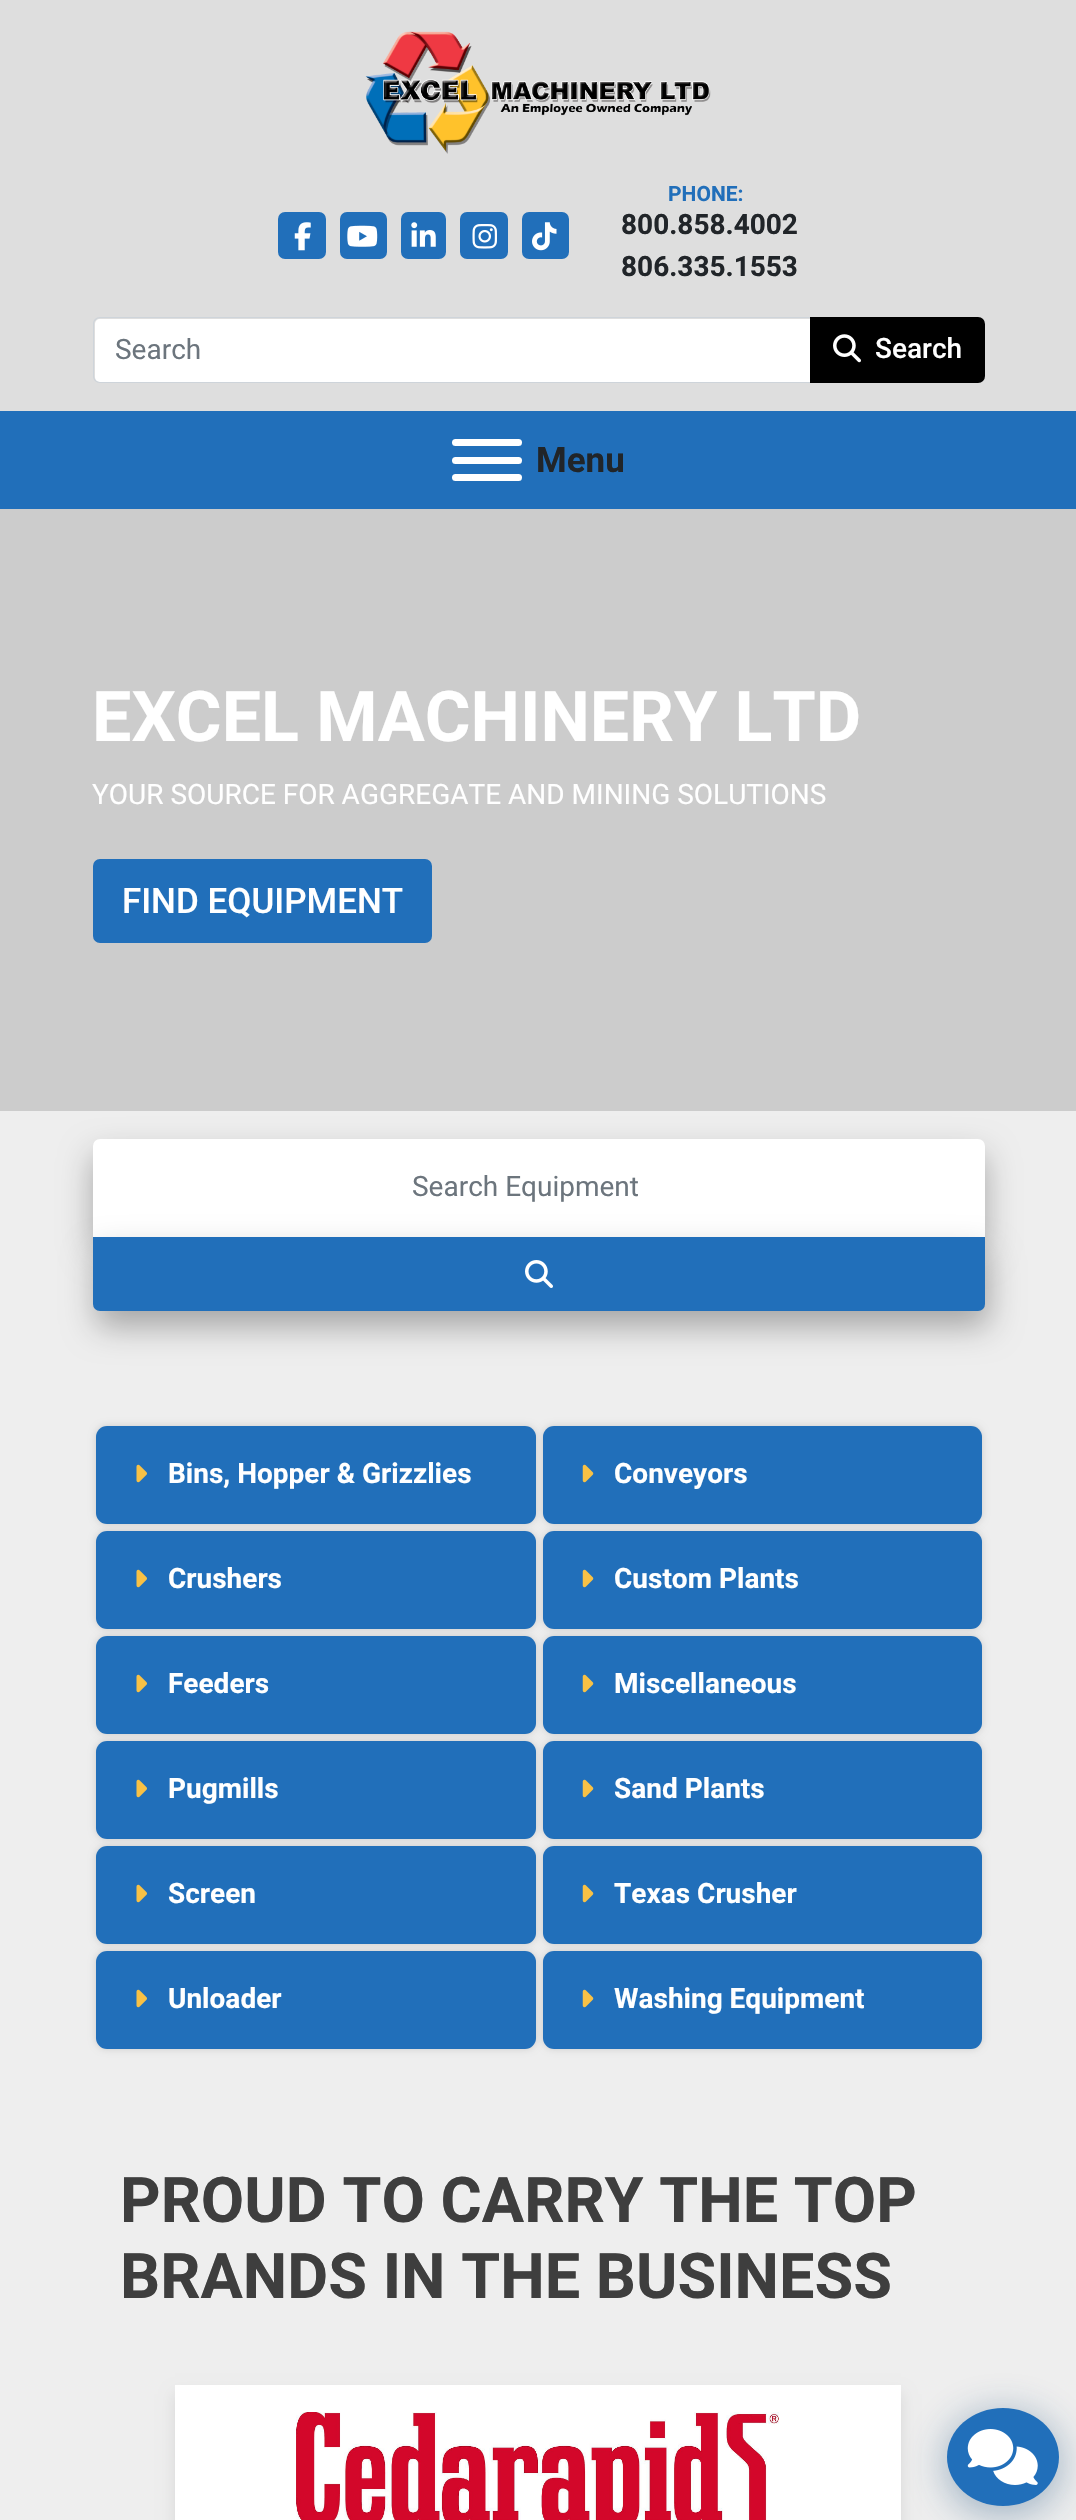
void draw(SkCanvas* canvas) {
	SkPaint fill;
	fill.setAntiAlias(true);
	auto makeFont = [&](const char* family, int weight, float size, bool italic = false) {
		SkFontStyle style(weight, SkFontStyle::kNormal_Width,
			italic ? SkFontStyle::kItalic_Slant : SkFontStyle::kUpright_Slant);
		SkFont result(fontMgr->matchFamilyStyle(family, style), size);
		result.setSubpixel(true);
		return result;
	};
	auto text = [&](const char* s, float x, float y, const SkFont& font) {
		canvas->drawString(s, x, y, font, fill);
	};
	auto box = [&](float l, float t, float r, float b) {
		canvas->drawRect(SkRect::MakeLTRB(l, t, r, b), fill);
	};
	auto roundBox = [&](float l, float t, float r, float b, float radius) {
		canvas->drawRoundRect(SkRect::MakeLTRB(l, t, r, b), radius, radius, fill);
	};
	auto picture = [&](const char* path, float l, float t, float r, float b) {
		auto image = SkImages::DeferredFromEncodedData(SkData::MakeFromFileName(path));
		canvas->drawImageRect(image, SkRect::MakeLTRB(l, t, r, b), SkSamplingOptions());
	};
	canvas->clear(0xFFEEEEEE);
	fill.setColor(0xFFDEDEDE);
	box(0, 0, 1076, 411);
	picture("image0.png", 365, 31, 711, 154);
	fill.setColor(0xFF216FBA);
	canvas->drawRoundRect(SkRect::MakeLTRB(279, 213, 325, 258), 6, 6, fill);
	fill.setStyle(SkPaint::kStroke_Style);
	fill.setStrokeWidth(2);
	canvas->drawRoundRect(SkRect::MakeLTRB(279, 213, 325, 258), 6, 6, fill);
	picture("image1.png", 294, 222, 311, 251);
	fill.setStyle(SkPaint::kFill_Style);
	canvas->drawRoundRect(SkRect::MakeLTRB(341, 213, 386, 258), 6, 6, fill);
	fill.setStyle(SkPaint::kStroke_Style);
	canvas->drawRoundRect(SkRect::MakeLTRB(341, 213, 386, 258), 6, 6, fill);
	picture("image2.png", 347, 225, 378, 247);
	fill.setStyle(SkPaint::kFill_Style);
	canvas->drawRoundRect(SkRect::MakeLTRB(402, 213, 445, 258), 6, 6, fill);
	fill.setStyle(SkPaint::kStroke_Style);
	canvas->drawRoundRect(SkRect::MakeLTRB(402, 213, 445, 258), 6, 6, fill);
	picture("image3.png", 411, 222, 436, 247);
	fill.setStyle(SkPaint::kFill_Style);
	canvas->drawRoundRect(SkRect::MakeLTRB(461, 213, 507, 258), 6, 6, fill);
	fill.setStyle(SkPaint::kStroke_Style);
	canvas->drawRoundRect(SkRect::MakeLTRB(461, 213, 507, 258), 6, 6, fill);
	picture("image4.png", 472, 224, 497, 249);
	fill.setStyle(SkPaint::kFill_Style);
	canvas->drawRoundRect(SkRect::MakeLTRB(523, 213, 568, 258), 6, 6, fill);
	fill.setStyle(SkPaint::kStroke_Style);
	canvas->drawRoundRect(SkRect::MakeLTRB(523, 213, 568, 258), 6, 6, fill);
	picture("image5.png", 532, 222, 557, 251);
	fill.setStyle(SkPaint::kFill_Style);
	fill.setColor(0xFFFFFFFF);
	canvas->drawPath(SkPathBuilder().moveTo(100, 319).lineTo(810, 319).lineTo(810, 382).lineTo(100, 382).cubicTo(97, 382, 95, 380, 95, 377).lineTo(95, 324).cubicTo(95, 321, 97, 319, 100, 319).close().detach(), fill);
	fill.setColor(0xFFCED4DA);
	canvas->drawPath(SkPathBuilder(SkPathFillType::kEvenOdd).moveTo(100, 317).lineTo(810, 317).lineTo(810, 383).lineTo(100, 383).cubicTo(96, 383, 93, 380, 93, 376).lineTo(93, 324).cubicTo(93, 320, 96, 317, 100, 317).close().moveTo(100, 318).lineTo(810, 318).lineTo(810, 382).lineTo(100, 382).cubicTo(97, 382, 94, 379, 94, 376).lineTo(94, 324).cubicTo(94, 321, 97, 318, 100, 318).close().detach(), fill);
	fill.setColor(0xFF000000);
	canvas->drawPath(SkPathBuilder().moveTo(811, 318).lineTo(978, 318).cubicTo(981.5f, 318, 984, 320.5f, 984, 324).lineTo(984, 376).cubicTo(984, 379.5f, 981.5f, 382, 978, 382).lineTo(811, 382).close().detach(), fill);
	fill.setStyle(SkPaint::kStroke_Style);
	canvas->drawPath(SkPathBuilder().moveTo(811, 318).lineTo(978, 318).cubicTo(981.5f, 318, 984, 320.5f, 984, 324).lineTo(984, 376).cubicTo(984, 379.5f, 981.5f, 382, 978, 382).lineTo(811, 382).close().detach(), fill);
	picture("image6.png", 833, 334, 861, 363);
	fill.setStyle(SkPaint::kFill_Style);
	fill.setColor(0xFF216FBA);
	box(0, 411, 1076, 509);
	fill.setColor(0xFFFFFFFF);
	roundBox(452, 457, 522, 464, 3.5f);
	roundBox(452, 439, 522, 446, 3.5f);
	roundBox(452, 474, 522, 481, 3.5f);
	fill.setColor(0xFFCCCCCC);
	box(0, 509, 1076, 1111);
	fill.setColor(0xFF216FBA);
	canvas->drawRoundRect(SkRect::MakeLTRB(94, 860, 431, 942), 6, 6, fill);
	fill.setStyle(SkPaint::kStroke_Style);
	canvas->drawRoundRect(SkRect::MakeLTRB(94, 860, 431, 942), 6, 6, fill);
	fill.setStyle(SkPaint::kFill_Style);
	fill.setColor(0x4D000000);
	fill.setMaskFilter(SkMaskFilter::MakeBlur(kNormal_SkBlurStyle, 16));
	canvas->drawRoundRect(SkRect::MakeLTRB(93, 1155, 985, 1253), 7, 7, fill);
	fill.setMaskFilter(nullptr);
	fill.setColor(0xFFFFFFFF);
	canvas->drawPath(SkPathBuilder().moveTo(100, 1142.5f).lineTo(978, 1142.5f).cubicTo(980, 1142.5f, 981.5f, 1144, 981.5f, 1146).lineTo(981.5f, 1233.5f).lineTo(96.5f, 1233.5f).lineTo(96.5f, 1146).cubicTo(96.5f, 1144, 98, 1142.5f, 100, 1142.5f).close().detach(), fill);
	fill.setStyle(SkPaint::kStroke_Style);
	fill.setStrokeWidth(7);
	canvas->drawPath(SkPathBuilder().moveTo(100, 1142.5f).lineTo(978, 1142.5f).cubicTo(980, 1142.5f, 981.5f, 1144, 981.5f, 1146).lineTo(981.5f, 1233.5f).lineTo(96.5f, 1233.5f).lineTo(96.5f, 1146).cubicTo(96.5f, 1144, 98, 1142.5f, 100, 1142.5f).close().detach(), fill);
	fill.setStyle(SkPaint::kFill_Style);
	fill.setColor(0x4D000000);
	fill.setMaskFilter(SkMaskFilter::MakeBlur(kNormal_SkBlurStyle, 16));
	canvas->drawRoundRect(SkRect::MakeLTRB(96, 1253, 989, 1327), 7, 7, fill);
	fill.setMaskFilter(nullptr);
	fill.setColor(0xFF216FBA);
	canvas->drawPath(SkPathBuilder().moveTo(94, 1238).lineTo(984, 1238).lineTo(984, 1304).cubicTo(984, 1307.5f, 981.5f, 1310, 978, 1310).lineTo(100, 1310).cubicTo(96.5f, 1310, 94, 1307.5f, 94, 1304).close().detach(), fill);
	fill.setStyle(SkPaint::kStroke_Style);
	fill.setStrokeWidth(2);
	canvas->drawPath(SkPathBuilder().moveTo(94, 1238).lineTo(984, 1238).lineTo(984, 1304).cubicTo(984, 1307.5f, 981.5f, 1310, 978, 1310).lineTo(100, 1310).cubicTo(96.5f, 1310, 94, 1307.5f, 94, 1304).close().detach(), fill);
	picture("image7.png", 525, 1260, 553, 1288);
	fill.setStyle(SkPaint::kFill_Style);
	fill.setColor(0x26000000);
	fill.setMaskFilter(SkMaskFilter::MakeBlur(kNormal_SkBlurStyle, 3.5f));
	canvas->drawRoundRect(SkRect::MakeLTRB(96, 1426, 536, 1524), 11, 11, fill);
	fill.setMaskFilter(nullptr);
	fill.setColor(0xFF216FBA);
	roundBox(96, 1426, 536, 1524, 11);
	picture("image8.png", 136, 1464, 147, 1483);
	fill.setColor(0x26000000);
	fill.setMaskFilter(SkMaskFilter::MakeBlur(kNormal_SkBlurStyle, 3.5f));
	canvas->drawRoundRect(SkRect::MakeLTRB(543, 1426, 982, 1524), 11, 11, fill);
	fill.setMaskFilter(nullptr);
	fill.setColor(0xFF216FBA);
	roundBox(543, 1426, 982, 1524, 11);
	picture("image9.png", 582, 1464, 594, 1483);
	fill.setColor(0x26000000);
	fill.setMaskFilter(SkMaskFilter::MakeBlur(kNormal_SkBlurStyle, 3.5f));
	canvas->drawRoundRect(SkRect::MakeLTRB(96, 1531, 536, 1629), 11, 11, fill);
	fill.setMaskFilter(nullptr);
	fill.setColor(0xFF216FBA);
	roundBox(96, 1531, 536, 1629, 11);
	picture("image8.png", 136, 1569, 147, 1588);
	fill.setColor(0x26000000);
	fill.setMaskFilter(SkMaskFilter::MakeBlur(kNormal_SkBlurStyle, 3.5f));
	canvas->drawRoundRect(SkRect::MakeLTRB(543, 1531, 982, 1629), 11, 11, fill);
	fill.setMaskFilter(nullptr);
	fill.setColor(0xFF216FBA);
	roundBox(543, 1531, 982, 1629, 11);
	picture("image9.png", 582, 1569, 594, 1588);
	fill.setColor(0x26000000);
	fill.setMaskFilter(SkMaskFilter::MakeBlur(kNormal_SkBlurStyle, 3.5f));
	canvas->drawRoundRect(SkRect::MakeLTRB(96, 1636, 536, 1734), 11, 11, fill);
	fill.setMaskFilter(nullptr);
	fill.setColor(0xFF216FBA);
	roundBox(96, 1636, 536, 1734, 11);
	picture("image8.png", 136, 1674, 147, 1693);
	fill.setColor(0x26000000);
	fill.setMaskFilter(SkMaskFilter::MakeBlur(kNormal_SkBlurStyle, 3.5f));
	canvas->drawRoundRect(SkRect::MakeLTRB(543, 1636, 982, 1734), 11, 11, fill);
	fill.setMaskFilter(nullptr);
	fill.setColor(0xFF216FBA);
	roundBox(543, 1636, 982, 1734, 11);
	picture("image9.png", 582, 1674, 594, 1693);
	fill.setColor(0x26000000);
	fill.setMaskFilter(SkMaskFilter::MakeBlur(kNormal_SkBlurStyle, 3.5f));
	canvas->drawRoundRect(SkRect::MakeLTRB(96, 1741, 536, 1839), 11, 11, fill);
	fill.setMaskFilter(nullptr);
	fill.setColor(0xFF216FBA);
	roundBox(96, 1741, 536, 1839, 11);
	picture("image8.png", 136, 1779, 147, 1798);
	fill.setColor(0x26000000);
	fill.setMaskFilter(SkMaskFilter::MakeBlur(kNormal_SkBlurStyle, 3.5f));
	canvas->drawRoundRect(SkRect::MakeLTRB(543, 1741, 982, 1839), 11, 11, fill);
	fill.setMaskFilter(nullptr);
	fill.setColor(0xFF216FBA);
	roundBox(543, 1741, 982, 1839, 11);
	picture("image9.png", 582, 1779, 594, 1798);
	fill.setColor(0x26000000);
	fill.setMaskFilter(SkMaskFilter::MakeBlur(kNormal_SkBlurStyle, 3.5f));
	canvas->drawRoundRect(SkRect::MakeLTRB(96, 1846, 536, 1944), 11, 11, fill);
	fill.setMaskFilter(nullptr);
	fill.setColor(0xFF216FBA);
	roundBox(96, 1846, 536, 1944, 11);
	picture("image8.png", 136, 1884, 147, 1903);
	fill.setColor(0x26000000);
	fill.setMaskFilter(SkMaskFilter::MakeBlur(kNormal_SkBlurStyle, 3.5f));
	canvas->drawRoundRect(SkRect::MakeLTRB(543, 1846, 982, 1944), 11, 11, fill);
	fill.setMaskFilter(nullptr);
	fill.setColor(0xFF216FBA);
	roundBox(543, 1846, 982, 1944, 11);
	picture("image9.png", 582, 1884, 594, 1903);
	fill.setColor(0x26000000);
	fill.setMaskFilter(SkMaskFilter::MakeBlur(kNormal_SkBlurStyle, 3.5f));
	canvas->drawRoundRect(SkRect::MakeLTRB(96, 1951, 536, 2049), 11, 11, fill);
	fill.setMaskFilter(nullptr);
	fill.setColor(0xFF216FBA);
	roundBox(96, 1951, 536, 2049, 11);
	picture("image8.png", 136, 1989, 147, 2008);
	fill.setColor(0x26000000);
	fill.setMaskFilter(SkMaskFilter::MakeBlur(kNormal_SkBlurStyle, 3.5f));
	canvas->drawRoundRect(SkRect::MakeLTRB(543, 1951, 982, 2049), 11, 11, fill);
	fill.setMaskFilter(nullptr);
	fill.setColor(0xFF216FBA);
	roundBox(543, 1951, 982, 2049, 11);
	picture("image9.png", 582, 1989, 594, 2008);
	fill.setColor(0x1A000000);
	fill.setMaskFilter(SkMaskFilter::MakeBlur(kNormal_SkBlurStyle, 7));
	canvas->drawRect(SkRect::MakeLTRB(175, 2394, 901, 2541), fill);
	fill.setMaskFilter(nullptr);
	fill.setColor(0xFFFFFFFF);
	box(175, 2385, 901, 2520);
	picture("image10.png", 296, 2412, 779, 2520);
	fill.setColor(0x66154879);
	fill.setMaskFilter(SkMaskFilter::MakeBlur(kNormal_SkBlurStyle, 21));
	canvas->drawRoundRect(SkRect::MakeLTRB(947, 2415, 1059, 2513), 49, 49, fill);
	fill.setMaskFilter(nullptr);
	fill.setColor(0xFF216FBA);
	canvas->drawOval(SkRect::MakeLTRB(947, 2408, 1059, 2506), fill);
	picture("image11.png", 967, 2429, 1038, 2485);
	auto font1 = makeFont("Roboto", 700, 21);
	text("PHONE:", 668, 201, font1);
	auto font2 = makeFont("Roboto", 700, 28);
	fill.setColor(0xFF212529);
	text("800.858.4002", 621, 234, font2);
	text("806.335.1553", 621, 276, font2);
	auto font3 = makeFont("Roboto", 400, 28);
	fill.setColor(0xFF6C757D);
	text("Search", 115, 359, font3);
	auto font4 = makeFont("Roboto", 500, 28);
	fill.setColor(0xFFFFFFFF);
	text("Search", 875, 358, font4);
	auto font5 = makeFont("Roboto", 700, 35);
	fill.setColor(0xFF212529);
	text("Menu", 536, 472, font5);
	auto font6 = makeFont("Roboto", 700, 70);
	fill.setColor(0xFFFFFFFF);
	text("EXCEL MACHINERY LTD", 92, 741, font6);
	text("YOUR SOURCE FOR AGGREGATE AND MINING SOLUTIONS", 92, 804, font3);
	auto font7 = makeFont("Roboto", 500, 35);
	text("FIND EQUIPMENT", 122, 913, font7);
	fill.setColor(0xFF6C757D);
	text("Search Equipment", 412, 1196, font3);
	fill.setColor(0xFFFFFFFF);
	text("Bins, Hopper & Grizzlies", 168, 1483, font2);
	text("Conveyors", 614, 1483, font2);
	text("Crushers", 168, 1588, font2);
	text("Custom Plants", 614, 1588, font2);
	text("Feeders", 168, 1693, font2);
	text("Miscellaneous", 614, 1693, font2);
	text("Pugmills", 168, 1798, font2);
	text("Sand Plants", 614, 1798, font2);
	text("Screen", 168, 1903, font2);
	text("Texas Crusher", 614, 1903, font2);
	text("Unloader", 168, 2008, font2);
	text("Washing Equipment", 614, 2008, font2);
	auto font8 = makeFont("Roboto", 700, 63);
	fill.setColor(0xFF3E3E3E);
	text("PROUD TO CARRY THE TOP", 120, 2222, font8);
	text("BRANDS IN THE BUSINESS", 120, 2298, font8);
}
